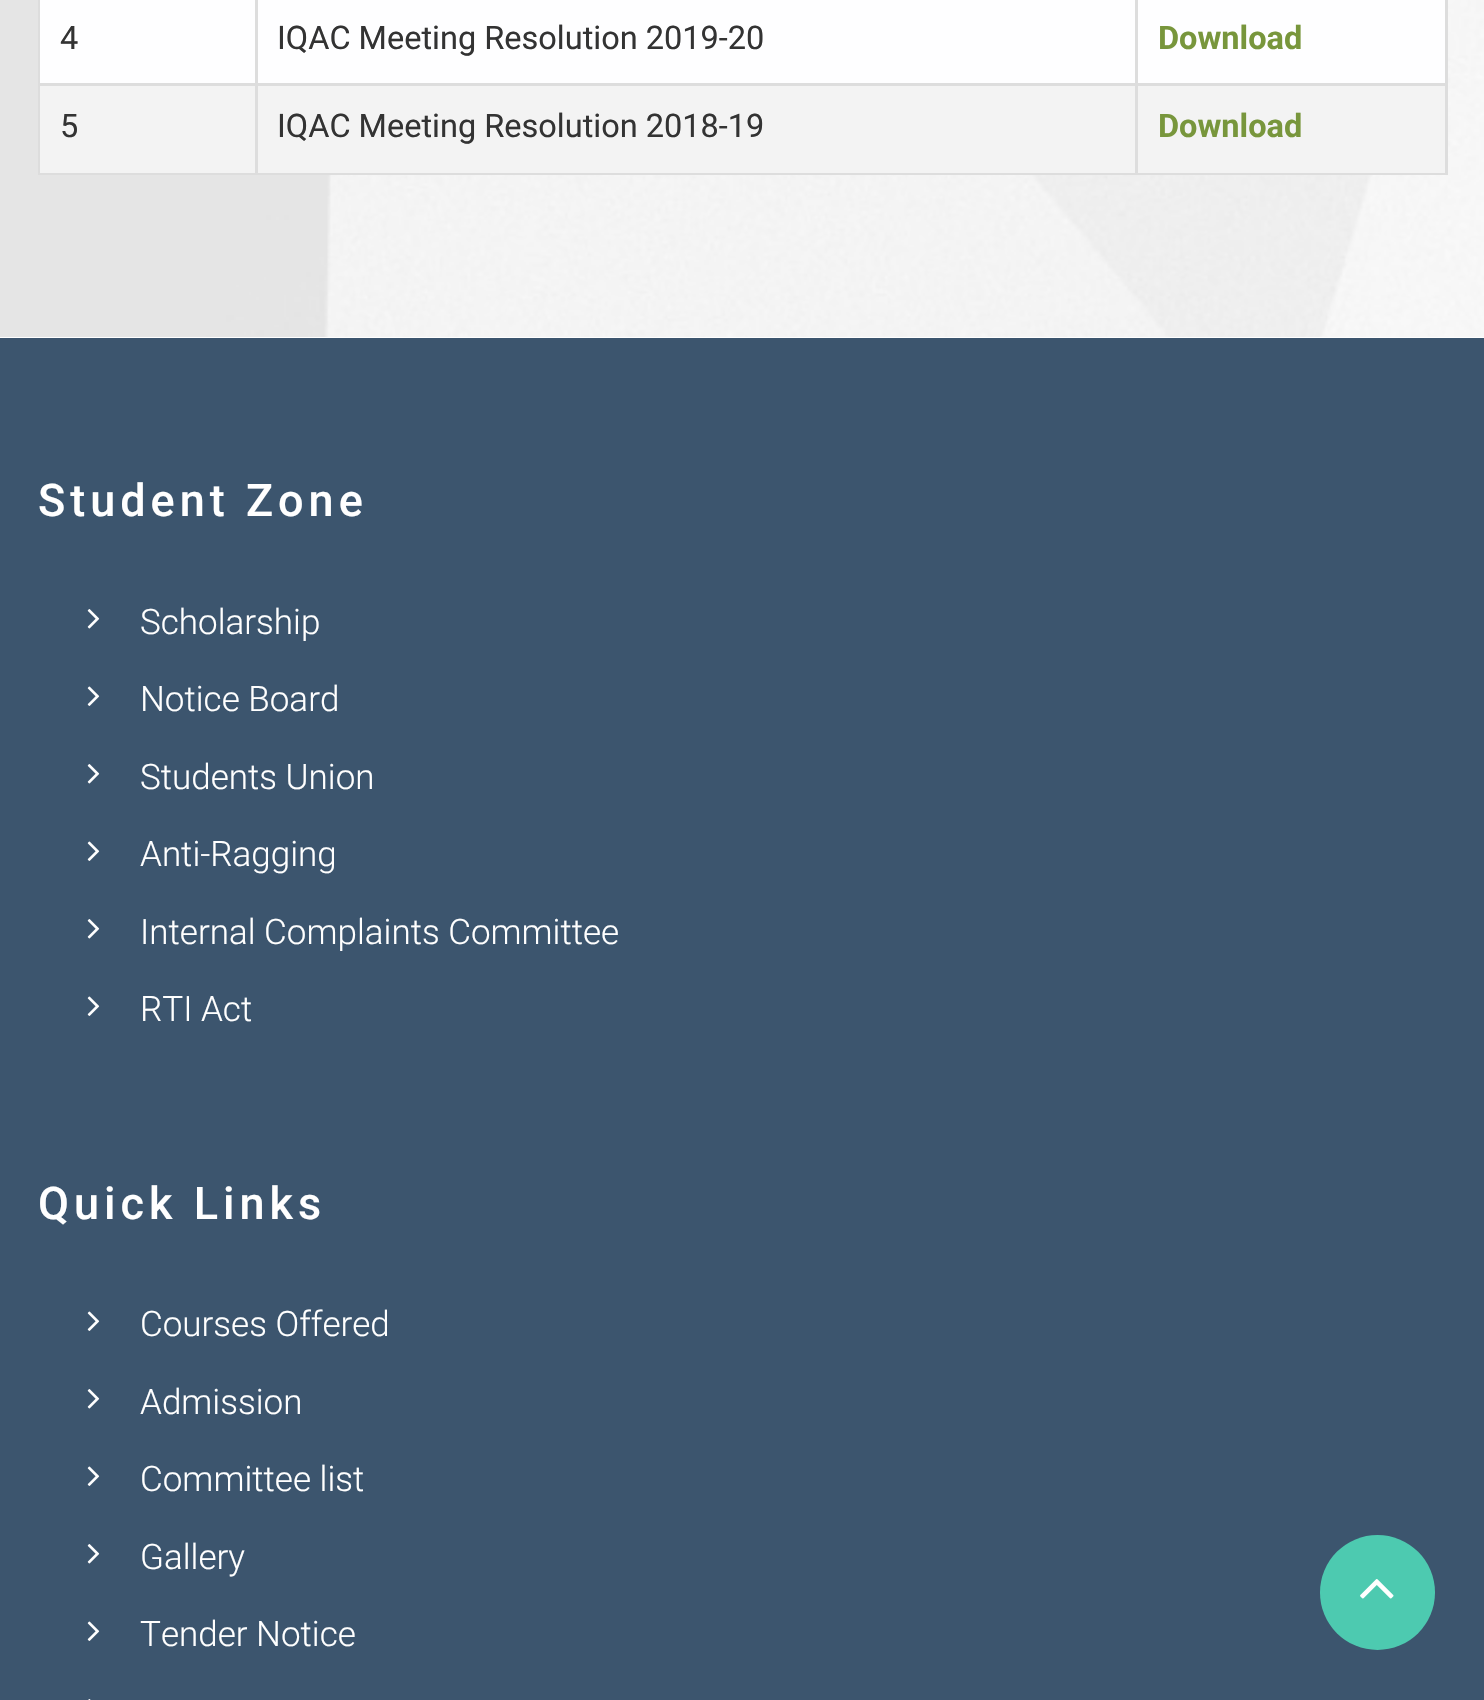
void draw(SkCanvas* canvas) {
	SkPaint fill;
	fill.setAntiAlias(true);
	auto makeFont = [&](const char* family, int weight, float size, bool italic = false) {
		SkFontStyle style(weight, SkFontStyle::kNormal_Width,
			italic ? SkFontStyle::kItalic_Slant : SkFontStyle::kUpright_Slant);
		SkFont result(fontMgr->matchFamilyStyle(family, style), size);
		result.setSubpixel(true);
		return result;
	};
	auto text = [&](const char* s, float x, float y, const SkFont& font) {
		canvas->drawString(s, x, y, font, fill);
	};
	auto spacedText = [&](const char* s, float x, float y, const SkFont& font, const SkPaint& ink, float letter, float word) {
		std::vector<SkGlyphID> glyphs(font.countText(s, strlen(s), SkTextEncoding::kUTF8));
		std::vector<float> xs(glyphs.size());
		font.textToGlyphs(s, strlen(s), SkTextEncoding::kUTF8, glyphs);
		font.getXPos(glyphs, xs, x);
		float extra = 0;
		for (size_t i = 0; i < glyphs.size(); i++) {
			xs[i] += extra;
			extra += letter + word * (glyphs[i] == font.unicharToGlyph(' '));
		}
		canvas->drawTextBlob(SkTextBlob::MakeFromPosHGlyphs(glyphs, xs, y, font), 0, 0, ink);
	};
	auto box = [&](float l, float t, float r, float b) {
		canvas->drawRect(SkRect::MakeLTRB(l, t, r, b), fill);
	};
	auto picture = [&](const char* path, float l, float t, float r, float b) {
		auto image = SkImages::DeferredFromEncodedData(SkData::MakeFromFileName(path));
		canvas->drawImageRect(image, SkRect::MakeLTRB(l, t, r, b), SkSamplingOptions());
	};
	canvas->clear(0xFFFFFFFF);
	picture("image0.png", 0, 0, 1484, 337);
	fill.setStyle(SkPaint::kStroke_Style);
	fill.setStrokeWidth(3);
	fill.setColor(0xFFDDDDDD);
	canvas->drawRect(SkRect::MakeLTRB(39.5f, -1.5f, 1446.5f, 173.5f), fill);
	fill.setStyle(SkPaint::kFill_Style);
	fill.setColor(0xFFFEFEFF);
	box(40, 0, 1445, 83);
	fill.setColor(0xFFDDDDDD);
	box(1135, 83, 1445, 86);
	fill.setColor(0xFFF3F3F3);
	box(40, 86, 1445, 173);
	fill.setColor(0xFFDDDDDD);
	box(1135, 83, 1138, 173);
	box(255, 83, 1138, 86);
	box(255, 83, 258, 173);
	box(40, 83, 258, 86);
	box(255, 0, 258, 85);
	box(1135, 0, 1138, 85);
	fill.setColor(0xFF3C556E);
	box(0, 338, 1484, 1700);
	picture("image1.png", 87, 609, 100, 629);
	picture("image2.png", 87, 686, 100, 706);
	picture("image1.png", 87, 764, 100, 784);
	picture("image2.png", 87, 841, 100, 861);
	picture("image1.png", 87, 919, 100, 939);
	picture("image2.png", 87, 996, 100, 1016);
	picture("image2.png", 87, 1311, 100, 1331);
	picture("image1.png", 87, 1389, 100, 1409);
	picture("image2.png", 87, 1466, 100, 1486);
	picture("image1.png", 87, 1544, 100, 1564);
	picture("image2.png", 87, 1621, 100, 1641);
	picture("image3.png", 88, 1699, 91, 1700);
	fill.setColor(0xFF4DCAB0);
	canvas->drawCircle(1377.5f, 1592.5f, 57.5f, fill);
	picture("image4.png", 1360, 1579, 1394, 1599);
	auto font1 = makeFont("Roboto", 400, 32.5f);
	fill.setColor(0xFF333333);
	text("4", 60, 49, font1);
	text("IQAC Meeting Resolution 2019-20", 277, 49, font1);
	auto font2 = makeFont("Roboto", 700, 32.5f);
	fill.setColor(0xFF78963C);
	text("Download", 1158, 49, font2);
	fill.setColor(0xFF333333);
	text("5", 60, 137, font1);
	text("IQAC Meeting Resolution 2018-19", 277, 137, font1);
	fill.setColor(0xFF78963C);
	text("Download", 1158, 137, font2);
	auto font3 = makeFont("Roboto", 500, 45);
	fill.setColor(0xFFFFFFFF);
	spacedText("Student Zone", 38, 516, font3, fill, 5, 0);
	auto font4 = makeFont("Roboto", 300, 35);
	text("Scholarship", 140, 634, font4);
	text("Notice Board", 140, 711, font4);
	text("Students Union", 140, 789, font4);
	text("Anti-Ragging", 140, 866, font4);
	text("Internal Complaints Committee", 140, 944, font4);
	text("RTI Act", 140, 1021, font4);
	spacedText("Quick Links", 38, 1219, font3, fill, 5, 0);
	text("Courses Offered", 140, 1336, font4);
	text("Admission", 140, 1414, font4);
	text("Committee list", 140, 1491, font4);
	text("Gallery", 140, 1569, font4);
	text("Tender Notice", 140, 1646, font4);
}
